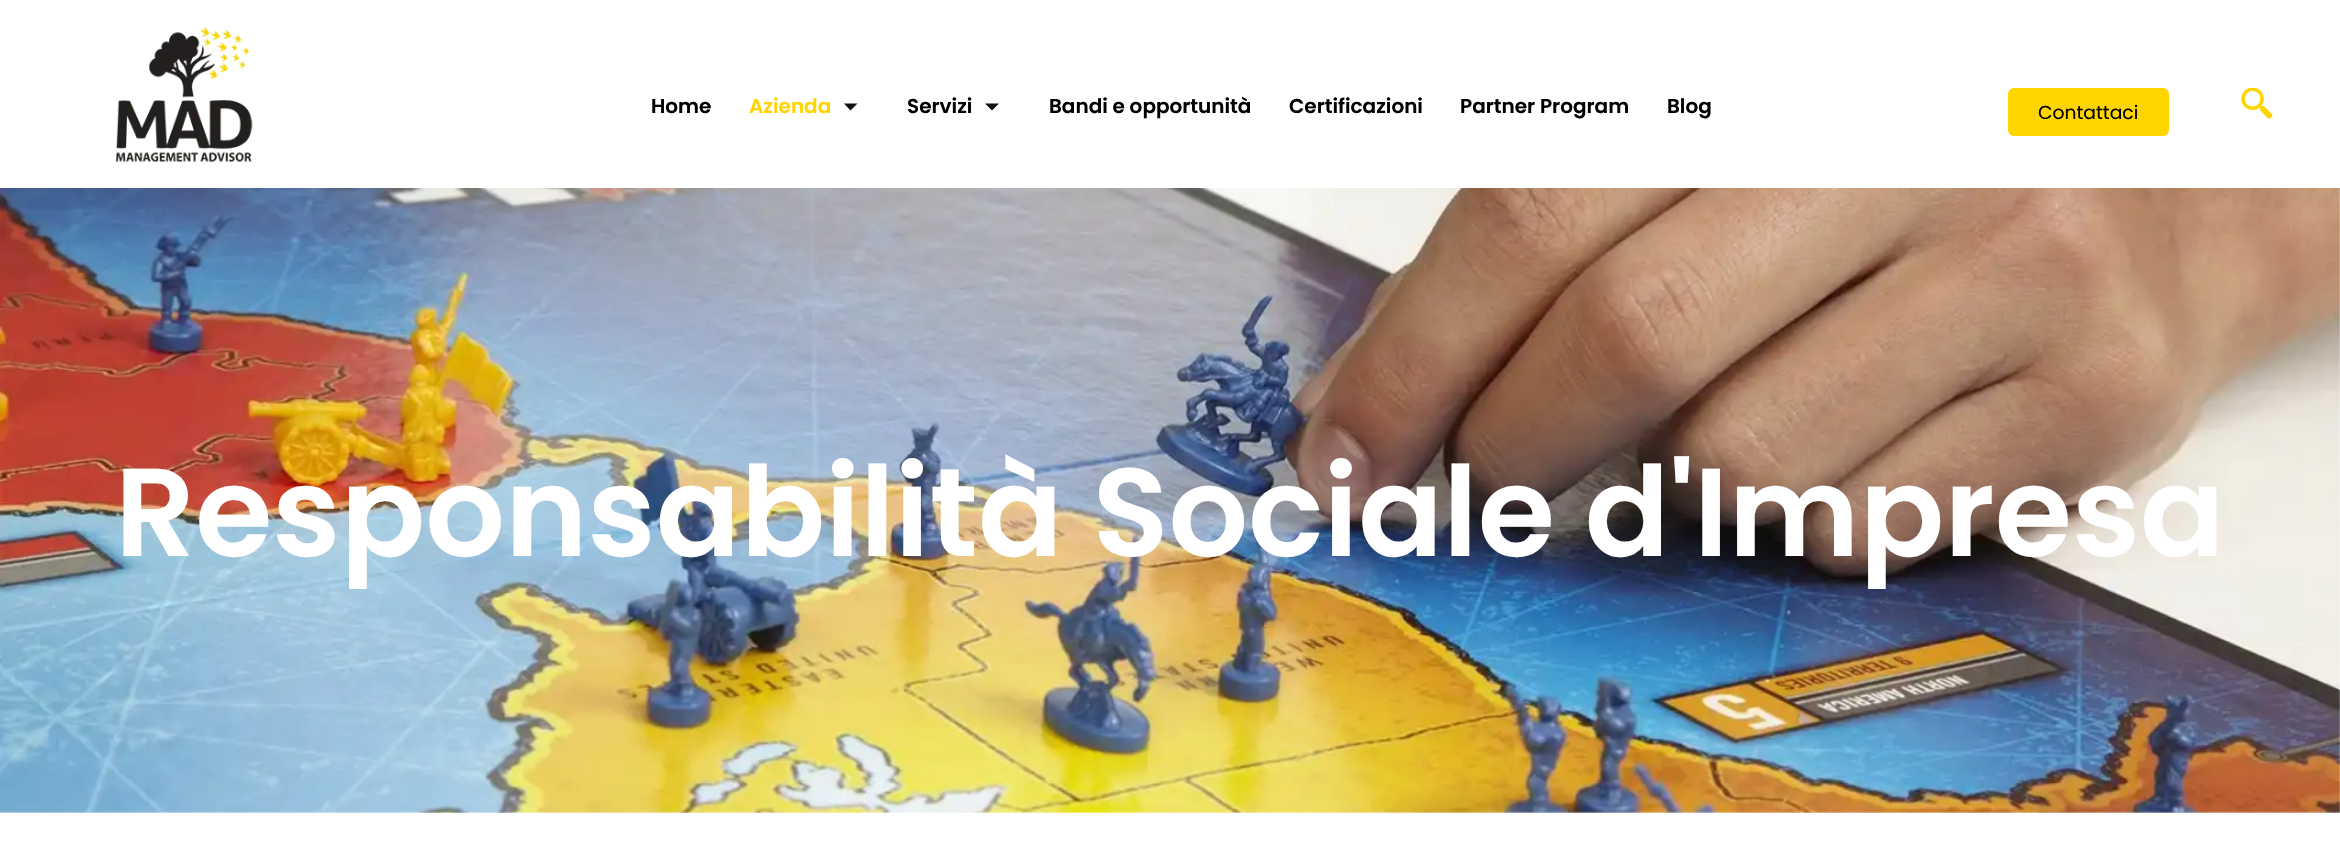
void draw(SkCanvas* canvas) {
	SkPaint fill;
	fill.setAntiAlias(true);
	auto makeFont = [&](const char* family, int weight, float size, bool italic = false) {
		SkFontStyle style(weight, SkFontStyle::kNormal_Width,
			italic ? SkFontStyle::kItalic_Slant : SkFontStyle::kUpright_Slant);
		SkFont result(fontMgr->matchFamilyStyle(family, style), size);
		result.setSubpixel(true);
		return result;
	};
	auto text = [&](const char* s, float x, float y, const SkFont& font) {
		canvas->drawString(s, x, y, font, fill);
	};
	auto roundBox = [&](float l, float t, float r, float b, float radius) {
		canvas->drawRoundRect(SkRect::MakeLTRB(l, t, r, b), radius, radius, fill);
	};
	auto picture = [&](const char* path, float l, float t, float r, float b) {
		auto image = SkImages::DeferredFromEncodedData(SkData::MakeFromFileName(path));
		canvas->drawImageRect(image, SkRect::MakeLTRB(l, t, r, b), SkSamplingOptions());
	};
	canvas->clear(0xFFFFFFFF);
	picture("image0.png", 115, 27, 253, 163);
	fill.setColor(0xFF101010);
	canvas->drawPath(SkPathBuilder().moveTo(844, 103.5f).lineTo(857.5f, 103.5f).lineTo(850.5f, 110.5f).close().detach(), fill);
	canvas->drawPath(SkPathBuilder().moveTo(985, 103.5f).lineTo(999, 103.5f).lineTo(992, 110.5f).close().detach(), fill);
	fill.setColor(0xFFFFD500);
	roundBox(2008, 88, 2169, 136, 6);
	picture("image1.png", 2241, 88, 2273, 119);
	picture("image2.png", 0, 188, 2340, 813);
	auto font1 = makeFont("Poppins", 600, 20);
	fill.setColor(0xFF000000);
	text("Home", 651, 113, font1);
	fill.setColor(0xFFFFD500);
	text("Azienda", 749, 113, font1);
	fill.setColor(0xFF000000);
	text("Servizi", 907, 113, font1);
	text("Bandi e opportunità", 1049, 113, font1);
	text("Certificazioni", 1289, 113, font1);
	text("Partner Program", 1460, 113, font1);
	text("Blog", 1667, 113, font1);
	auto font2 = makeFont("Poppins", 400, 18.75f);
	text("Contattaci", 2038, 119, font2);
	auto font3 = makeFont("Poppins", 600, 125);
	fill.setColor(0xFFFFFFFF);
	text("Responsabilità Sociale d'Impresa", 115, 556, font3);
}
